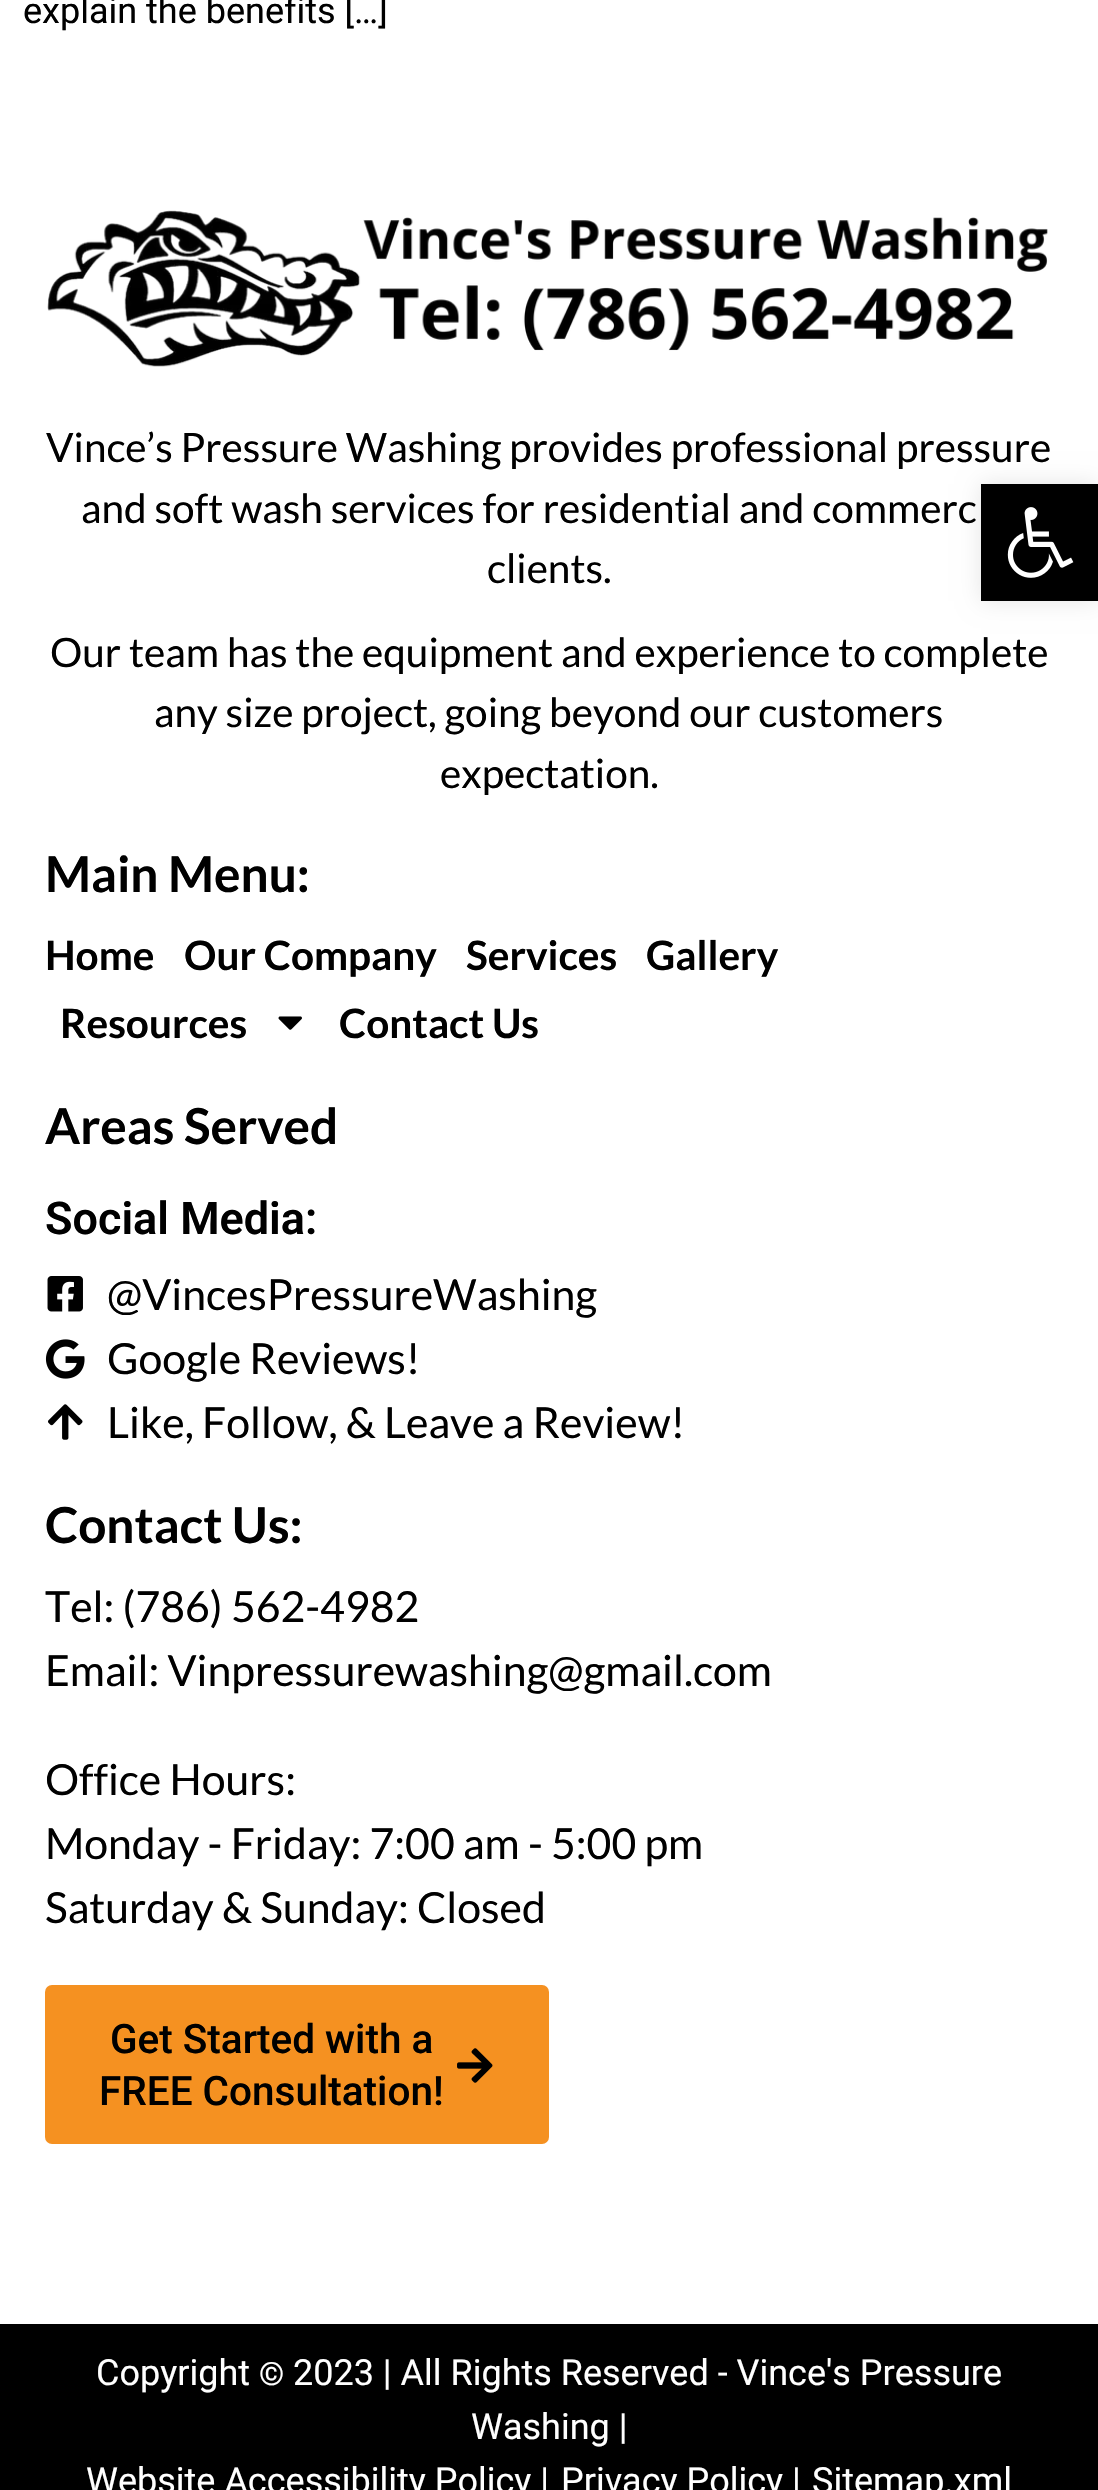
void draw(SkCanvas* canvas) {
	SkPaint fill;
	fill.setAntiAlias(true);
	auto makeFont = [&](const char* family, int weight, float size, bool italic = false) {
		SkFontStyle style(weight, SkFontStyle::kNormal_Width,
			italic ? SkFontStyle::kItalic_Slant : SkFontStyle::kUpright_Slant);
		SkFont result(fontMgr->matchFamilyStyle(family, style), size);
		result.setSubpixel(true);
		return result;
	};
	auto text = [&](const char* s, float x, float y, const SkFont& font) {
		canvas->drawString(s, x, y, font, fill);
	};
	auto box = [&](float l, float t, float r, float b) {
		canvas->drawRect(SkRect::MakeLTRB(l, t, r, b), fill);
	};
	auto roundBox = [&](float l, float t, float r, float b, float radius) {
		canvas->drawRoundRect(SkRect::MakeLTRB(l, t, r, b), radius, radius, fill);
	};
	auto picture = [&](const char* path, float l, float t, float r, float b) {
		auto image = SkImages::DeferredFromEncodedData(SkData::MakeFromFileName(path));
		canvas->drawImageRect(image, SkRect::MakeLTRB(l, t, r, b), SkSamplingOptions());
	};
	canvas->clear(0xFFFFFFFF);
	picture("image0.png", 47, 210, 1048, 367);
	picture("image1.png", 278, 1016, 302, 1030);
	picture("image2.png", 47, 1276, 83, 1312);
	picture("image3.png", 45, 1339, 85, 1379);
	picture("image4.png", 48, 1404, 83, 1440);
	fill.setColor(0xFFF59121);
	roundBox(45, 1985, 549, 2144, 7);
	picture("image5.png", 457, 2048, 493, 2083);
	fill.setColor(0xFF000000);
	box(0, 2324, 1098, 2490);
	fill.setColor(0x1A000000);
	fill.setMaskFilter(SkMaskFilter::MakeBlur(kNormal_SkBlurStyle, 11));
	canvas->drawRect(SkRect::MakeLTRB(981, 484, 1098, 601), fill);
	fill.setMaskFilter(nullptr);
	fill.setColor(0xFF000000);
	box(981, 484, 1098, 601);
	picture("image6.png", 1007, 507, 1074, 578);
	auto font1 = makeFont("Roboto", 400, 36);
	text("explain the benefits […]", 23, 23, font1);
	auto font2 = makeFont("Lato", 400, 40.5f);
	text("Vince’s Pressure Washing provides professional pressure", 46, 462, font2);
	text("and soft wash services for residential and commerc", 81, 523, font2);
	text("clients.", 487, 583, font2);
	text("Our team has the equipment and experience to complete", 50, 667, font2);
	text("any size project, going beyond our customers", 154, 727, font2);
	text("expectation.", 440, 788, font2);
	auto font3 = makeFont("Lato", 700, 49.5f);
	text("Main Menu:", 45, 892, font3);
	auto font4 = makeFont("Lato", 700, 40.5f);
	text("Home", 45, 970, font4);
	text("Our Company", 184, 970, font4);
	text("Services", 466, 970, font4);
	text("Gallery", 646, 970, font4);
	text("Resources", 60, 1038, font4);
	text("Contact Us", 339, 1038, font4);
	text("Areas Served", 45, 1144, font3);
	auto font5 = makeFont("Roboto", 600, 45);
	text("Social Media:", 45, 1234, font5);
	auto font6 = makeFont("Lato", 400, 42.75f);
	text("@VincesPressureWashing", 107, 1310, font6);
	text("Google Reviews!", 107, 1374, font6);
	text("Like, Follow, & Leave a Review!", 107, 1438, font6);
	text("Contact Us:", 45, 1543, font3);
	text("Tel: (786) 562-4982", 45, 1622, font6);
	text("Email: Vinpressurewashing@gmail.com", 45, 1686, font6);
	text("Office Hours:", 45, 1795, font6);
	text("Monday - Friday: 7:00 am - 5:00 pm", 45, 1859, font6);
	text("Saturday & Sunday: Closed", 45, 1923, font6);
	auto font7 = makeFont("Roboto", 500, 40.5f);
	text("Get Started with a", 110, 2053, font7);
	text("FREE Consultation!", 99, 2105, font7);
	fill.setColor(0xFFFFFFFF);
	text("Copyright", 96, 2385, font1);
	auto font8 = makeFont("Roboto", 400, 32);
	text("©", 259, 2385, font8);
	text("2023 | All Rights Reserved - Vince's Pressure", 293, 2385, font1);
	text("Washing |", 471, 2439, font1);
	text("Website Accessibility Policy |", 86, 2493, font1);
	text("Privacy Policy |", 561, 2493, font1);
	text("Sitemap.xml", 812, 2493, font1);
}
